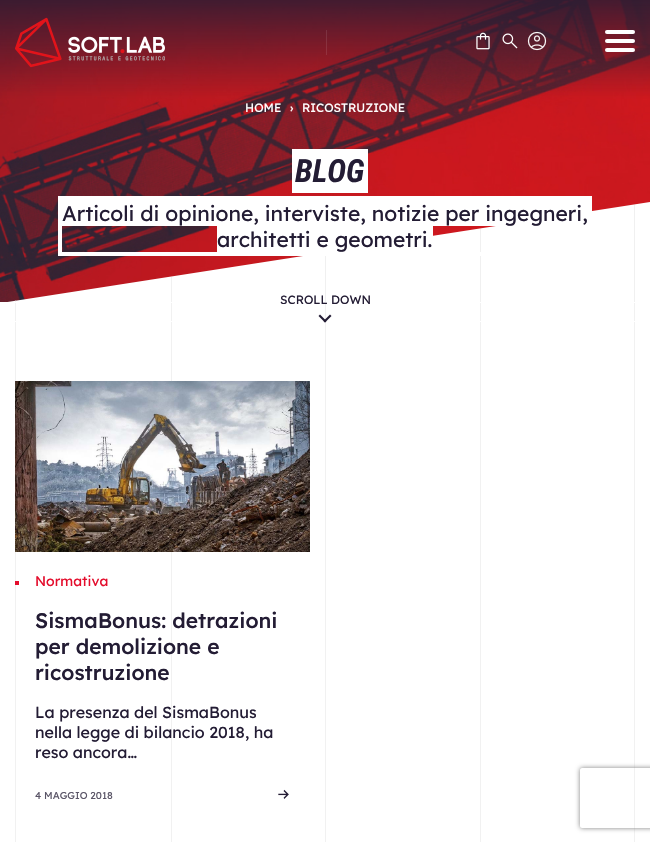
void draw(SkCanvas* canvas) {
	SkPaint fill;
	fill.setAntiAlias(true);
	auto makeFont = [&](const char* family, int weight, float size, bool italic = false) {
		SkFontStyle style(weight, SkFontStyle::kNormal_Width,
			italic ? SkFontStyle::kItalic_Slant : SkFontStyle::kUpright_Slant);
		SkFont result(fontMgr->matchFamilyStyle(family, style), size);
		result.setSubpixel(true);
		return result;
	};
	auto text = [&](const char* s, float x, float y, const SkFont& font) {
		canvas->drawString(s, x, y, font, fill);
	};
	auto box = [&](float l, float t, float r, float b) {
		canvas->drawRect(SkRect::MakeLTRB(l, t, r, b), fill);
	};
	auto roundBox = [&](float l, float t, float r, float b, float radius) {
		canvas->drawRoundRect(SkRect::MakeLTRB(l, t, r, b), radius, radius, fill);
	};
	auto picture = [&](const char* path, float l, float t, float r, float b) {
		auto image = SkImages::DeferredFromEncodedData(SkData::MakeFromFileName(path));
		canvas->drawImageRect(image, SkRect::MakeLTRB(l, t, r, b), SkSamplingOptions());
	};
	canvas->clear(0xFFFFFFFF);
	picture("image4.png", 0, 0, 650, 302);
	picture("image0.png", 15, 17, 165, 68);
	fill.setColor(0x1AFFFFFF);
	box(326, 30, 327, 55);
	picture("image1.png", 476, 32, 490, 50);
	picture("image2.png", 502, 33, 518, 49);
	picture("image3.png", 527, 31, 547, 51);
	fill.setColor(0xFFFFFFFF);
	roundBox(605, 30, 635, 34, 2);
	roundBox(605, 39, 635, 43, 2);
	roundBox(605, 48, 635, 52, 2);
	box(295, 152, 365, 190);
	fill.setStyle(SkPaint::kStroke_Style);
	fill.setStrokeWidth(3);
	canvas->drawRect(SkRect::MakeLTRB(293.5f, 150.5f, 366.5f, 191.5f), fill);
	fill.setStyle(SkPaint::kFill_Style);
	canvas->drawPath(SkPathBuilder().moveTo(650, 303).lineTo(650, 202).lineTo(1, 303).close().detach(), fill);
	box(62, 200, 588, 226);
	box(217, 226, 433, 252);
	fill.setColor(0x1A707070);
	canvas->drawPath(SkPathBuilder().moveTo(326, 252).lineTo(326, 303).lineTo(325, 303).lineTo(325, 253).close().detach(), fill);
	canvas->drawPath(SkPathBuilder().moveTo(481, 228).lineTo(481, 303).lineTo(480, 303).lineTo(480, 229).close().detach(), fill);
	fill.setStyle(SkPaint::kStroke_Style);
	fill.setStrokeWidth(4);
	fill.setColor(0xFFFFFFFF);
	canvas->drawRect(SkRect::MakeLTRB(60, 198, 590, 254), fill);
	fill.setStyle(SkPaint::kFill_Style);
	fill.setColor(0xFFF1F1F1);
	canvas->drawPath(SkPathBuilder().moveTo(16, 300.5f).lineTo(16, 303).lineTo(15, 303).lineTo(15, 301).close().detach(), fill);
	box(171, 277, 172, 321);
	fill.setColor(0x1A707070);
	canvas->drawPath(SkPathBuilder().moveTo(635, 204).lineTo(635, 303).lineTo(634, 303).lineTo(634, 205).close().detach(), fill);
	fill.setColor(0xFFFFFFFF);
	box(15, 302, 635, 303);
	fill.setColor(0xFFF1F1F1);
	box(15, 303, 16, 321);
	box(325, 303, 326, 321);
	box(634, 303, 635, 321);
	box(480, 303, 481, 321);
	box(325, 322, 326, 842);
	fill.setColor(0xFF231C34);
	canvas->drawPath(SkPathBuilder().moveTo(330, 314.5f).lineTo(331.5f, 316).lineTo(325, 322.5f).lineTo(323.5f, 321).close().detach(), fill);
	canvas->drawPath(SkPathBuilder().moveTo(320, 314.5f).lineTo(326.5f, 321).lineTo(325, 322.5f).lineTo(318.5f, 316).close().detach(), fill);
	fill.setColor(0xFFF1F1F1);
	box(15, 322, 16, 842);
	box(171, 322, 172, 842);
	box(634, 322, 635, 842);
	box(480, 322, 481, 842);
	picture("image5.png", 15, 381, 310, 552);
	fill.setColor(0xFFE40D2C);
	box(15, 581, 19, 585);
	picture("image6.png", 278, 789, 289, 799);
	canvas->save();
	canvas->clipPath(SkPathBuilder(SkPathFillType::kEvenOdd).moveTo(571, 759).lineTo(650, 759).lineTo(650, 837).lineTo(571, 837).close().moveTo(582, 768).lineTo(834, 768).cubicTo(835, 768, 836, 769, 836, 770).lineTo(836, 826).cubicTo(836, 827, 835, 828, 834, 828).lineTo(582, 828).cubicTo(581, 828, 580, 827, 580, 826).lineTo(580, 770).cubicTo(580, 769, 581, 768, 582, 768).close().detach(), true);
	fill.setColor(0xFF808080);
	fill.setMaskFilter(SkMaskFilter::MakeBlur(kNormal_SkBlurStyle, 2.5f));
	canvas->drawRoundRect(SkRect::MakeLTRB(580, 768, 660, 828), 2, 2, fill);
	fill.setMaskFilter(nullptr);
	canvas->restore();
	auto font1 = makeFont("Lexend", 400, 12);
	fill.setColor(0xFFFFFFFF);
	text("HOME", 245, 112, font1);
	text("›", 290, 112, font1);
	text("RICOSTRUZIONE", 302, 112, font1);
	auto font2 = makeFont("Roboto Condensed", 700, 32, true);
	fill.setColor(0xFF231C34);
	text("BLOG", 295, 182, font2);
	auto font3 = makeFont("Lexend", 400, 21);
	text("Articoli di opinione, interviste, notizie per ingegneri,", 62, 221, font3);
	text("architetti e geometri.", 217, 247, font3);
	text("SCROLL DOWN", 280, 304, font1);
	auto font4 = makeFont("Lexend", 400, 14);
	fill.setColor(0xFFE40D2C);
	text("Normativa", 35, 586, font4);
	auto font5 = makeFont("Lexend", 500, 21);
	fill.setColor(0xFF231C34);
	text("SismaBonus: detrazioni", 35, 628, font5);
	text("per demolizione e", 35, 654, font5);
	text("ricostruzione", 35, 680, font5);
	auto font6 = makeFont("Lexend", 400, 16);
	text("La presenza del SismaBonus", 35, 718, font6);
	text("nella legge di bilancio 2018, ha", 35, 738, font6);
	text("reso ancora…", 35, 758, font6);
	auto font7 = makeFont("Lexend", 400, 10);
	fill.setColor(0xFF5A5567);
	text("4 MAGGIO 2018", 35, 799, font7);
}
